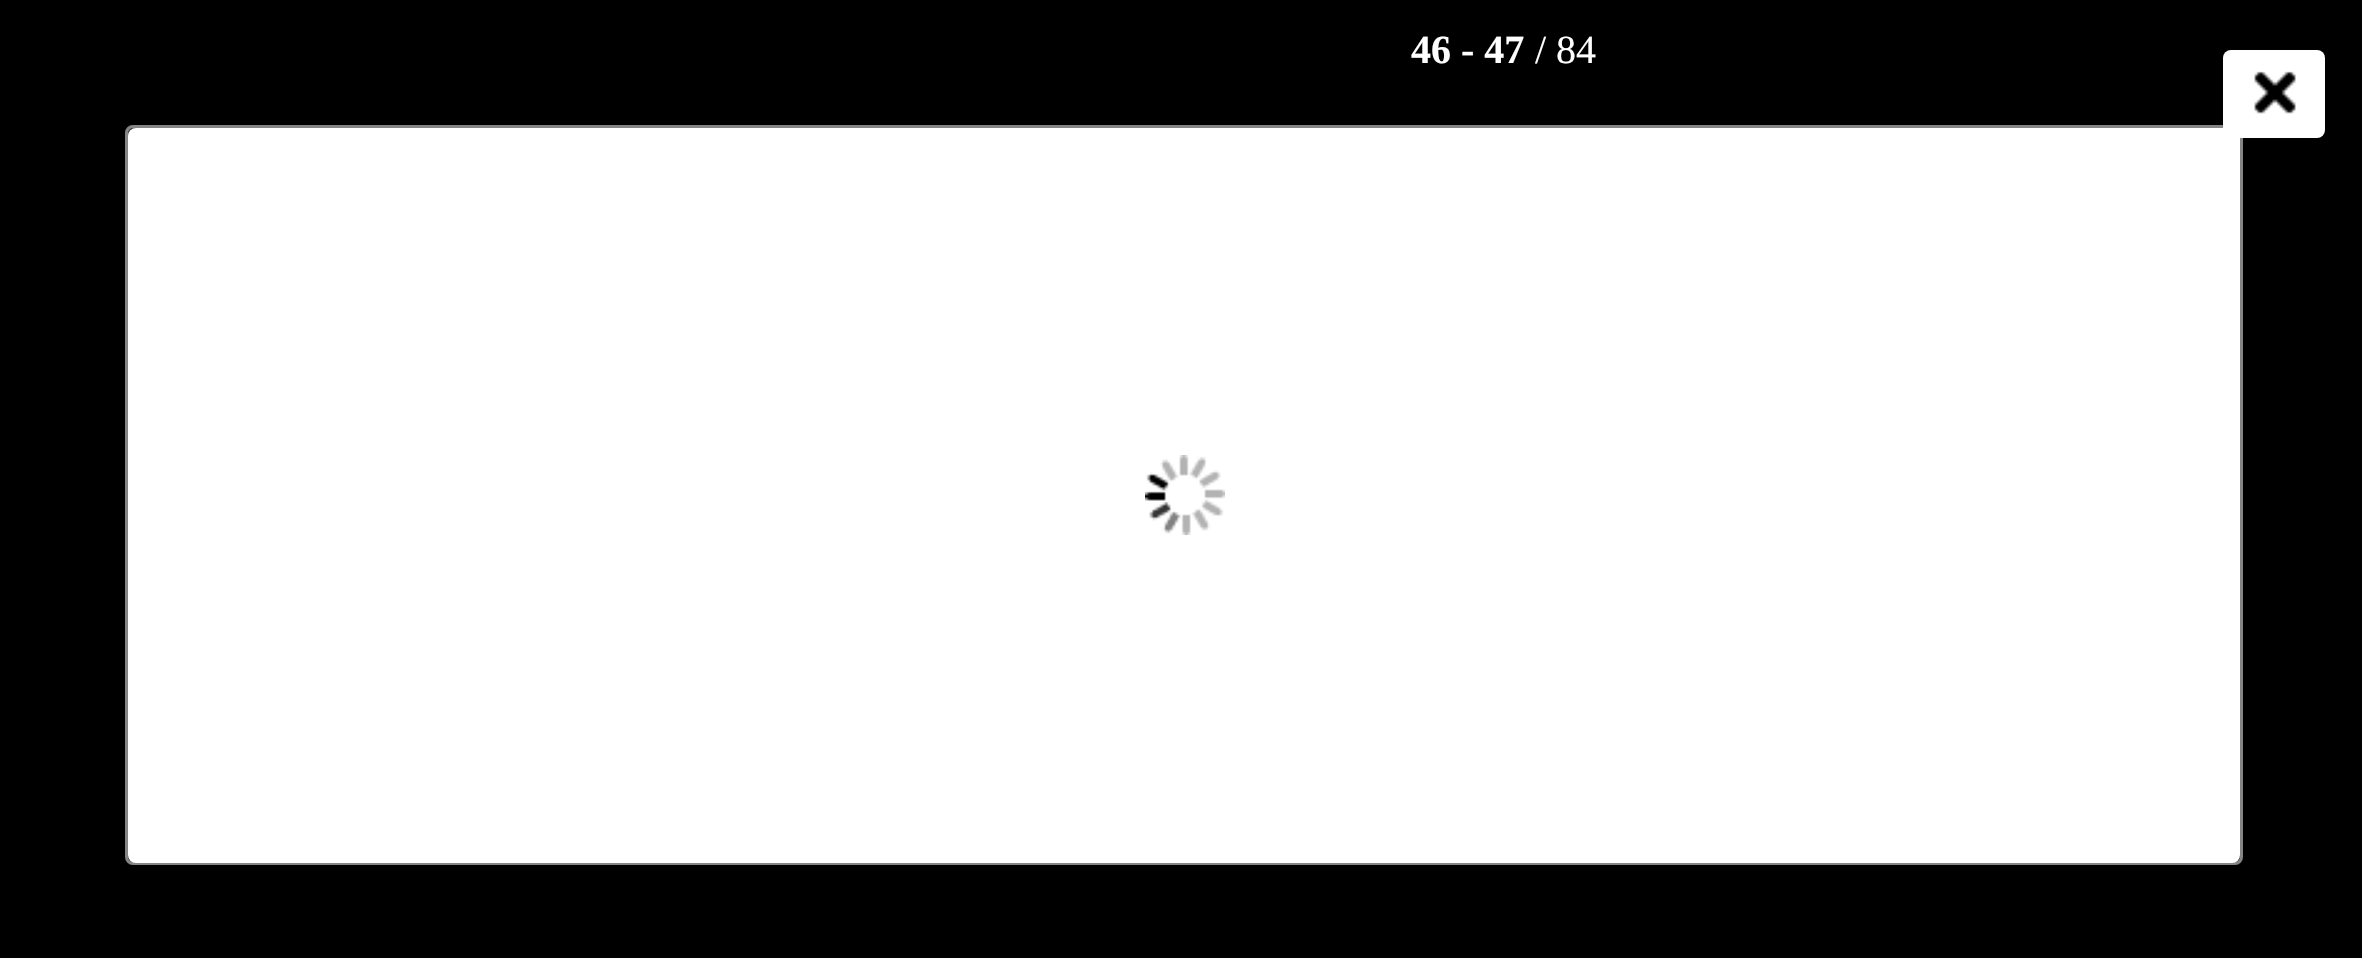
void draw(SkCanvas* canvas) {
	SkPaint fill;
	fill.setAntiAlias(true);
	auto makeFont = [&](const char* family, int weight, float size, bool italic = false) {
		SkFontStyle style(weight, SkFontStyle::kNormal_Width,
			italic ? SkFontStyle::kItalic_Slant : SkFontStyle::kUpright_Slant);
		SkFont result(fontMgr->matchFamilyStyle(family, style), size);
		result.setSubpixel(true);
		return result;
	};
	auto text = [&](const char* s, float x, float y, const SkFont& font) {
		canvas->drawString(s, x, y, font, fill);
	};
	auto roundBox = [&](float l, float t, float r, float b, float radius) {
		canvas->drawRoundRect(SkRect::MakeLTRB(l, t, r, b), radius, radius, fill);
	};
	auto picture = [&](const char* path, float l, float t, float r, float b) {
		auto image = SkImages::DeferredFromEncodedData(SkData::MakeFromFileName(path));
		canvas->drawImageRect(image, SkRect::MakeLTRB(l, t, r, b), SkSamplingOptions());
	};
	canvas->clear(0xFF000000);
	fill.setColor(0xFF333333);
	roundBox(125, 125, 2243, 865, 8);
	fill.setStyle(SkPaint::kStroke_Style);
	fill.setStrokeWidth(3);
	fill.setColor(0x66FFFFFF);
	canvas->drawRoundRect(SkRect::MakeLTRB(126.5f, 126.5f, 2241.5f, 863.5f), 6.5f, 6.5f, fill);
	fill.setStyle(SkPaint::kFill_Style);
	fill.setColor(0xFFFFFFFF);
	roundBox(128, 128, 2240, 863, 8);
	roundBox(2223, 50, 2325, 138, 8);
	picture("image0.png", 2254, 71, 2296, 114);
	picture("image1.png", 1145, 455, 1225, 535);
	auto font1 = makeFont("Liberation Serif", 700, 40);
	text("46 - 47", 1411, 63, font1);
	auto font2 = makeFont("Liberation Serif", 400, 40);
	text("/ 84", 1535, 63, font2);
}
